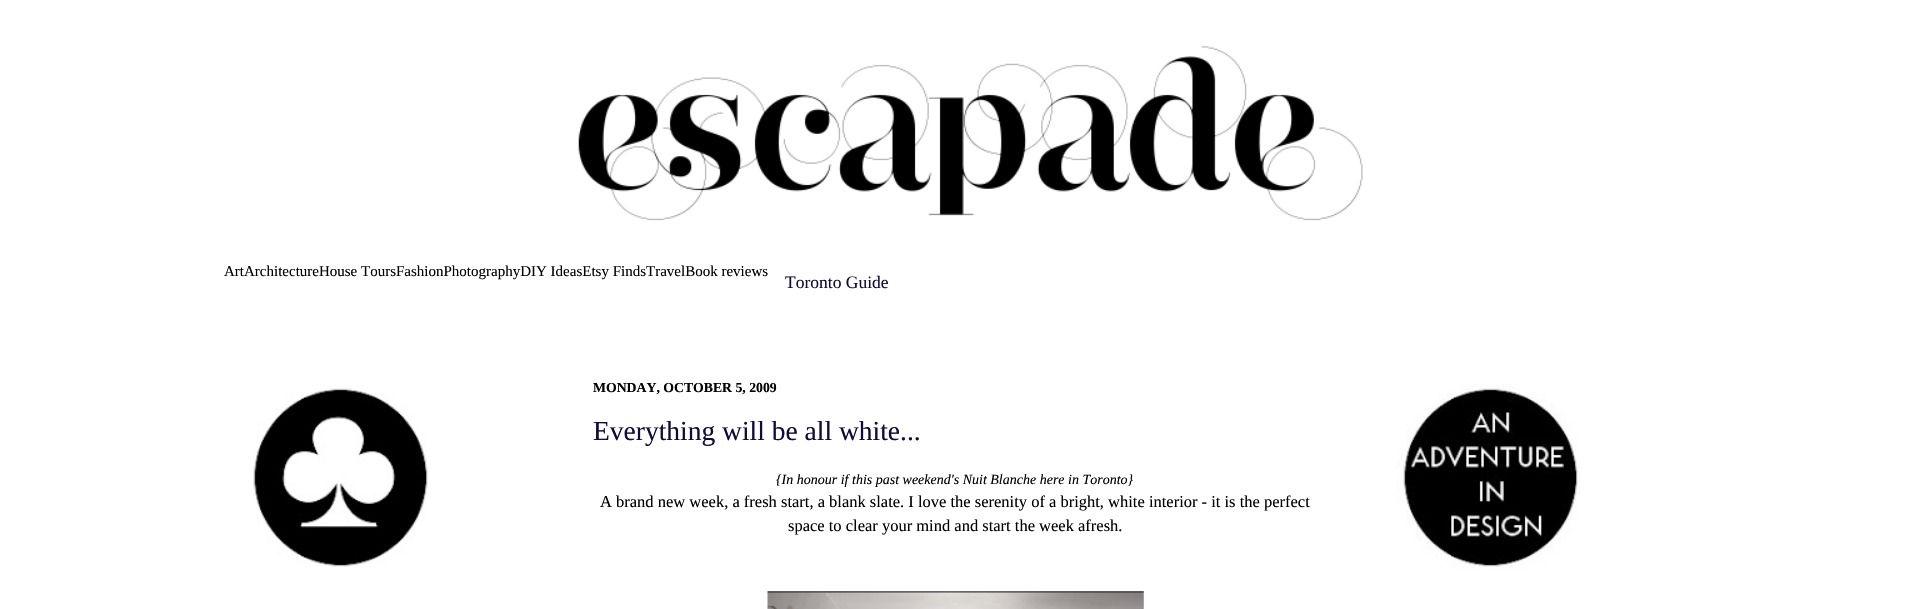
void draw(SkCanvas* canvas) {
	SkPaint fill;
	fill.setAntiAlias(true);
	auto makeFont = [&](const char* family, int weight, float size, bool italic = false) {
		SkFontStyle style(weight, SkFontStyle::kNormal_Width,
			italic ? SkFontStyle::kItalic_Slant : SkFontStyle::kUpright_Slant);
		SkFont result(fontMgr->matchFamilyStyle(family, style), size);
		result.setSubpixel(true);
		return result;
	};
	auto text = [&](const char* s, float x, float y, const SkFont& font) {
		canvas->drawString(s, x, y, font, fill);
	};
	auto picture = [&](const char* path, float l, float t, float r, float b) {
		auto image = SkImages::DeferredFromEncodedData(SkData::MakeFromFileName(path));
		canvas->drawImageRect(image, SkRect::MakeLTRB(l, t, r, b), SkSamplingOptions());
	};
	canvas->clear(0xFFFFFFFF);
	picture("image0.png", 578, 46, 1363, 221);
	picture("image1.png", 253, 388, 428, 567);
	picture("image2.png", 767, 591, 1144, 609);
	picture("image3.png", 1396, 384, 1580, 571);
	auto font1 = makeFont("Liberation Serif", 400, 15);
	fill.setColor(0xFF000000);
	text("ArtArchitectureHouse ToursFashionPhotographyDIY IdeasEtsy FindsTravelBook reviews", 224, 276, font1);
	auto font2 = makeFont("Liberation Serif", 400, 17.5f);
	fill.setColor(0xFF140A35);
	text("Toronto Guide", 785, 288, font2);
	auto font3 = makeFont("Liberation Serif", 700, 13.75f);
	fill.setColor(0xFF000000);
	text("MONDAY, OCTOBER 5, 2009", 593, 392, font3);
	auto font4 = makeFont("Liberation Serif", 400, 27.5f);
	fill.setColor(0xFF140A35);
	text("Everything will be all white...", 593, 440, font4);
	auto font5 = makeFont("Liberation Serif", 400, 14, true);
	fill.setColor(0xFF000000);
	text("{In honour if this past weekend's Nuit Blanche here in Toronto}", 776, 484, font5);
	auto font6 = makeFont("Liberation Serif", 400, 16.5f);
	text("A brand new week, a fresh start, a blank slate. I love the serenity of a bright, white interior - it is the perfect", 600, 507, font6);
	text("space to clear your mind and start the week afresh.", 788, 531, font6);
}
